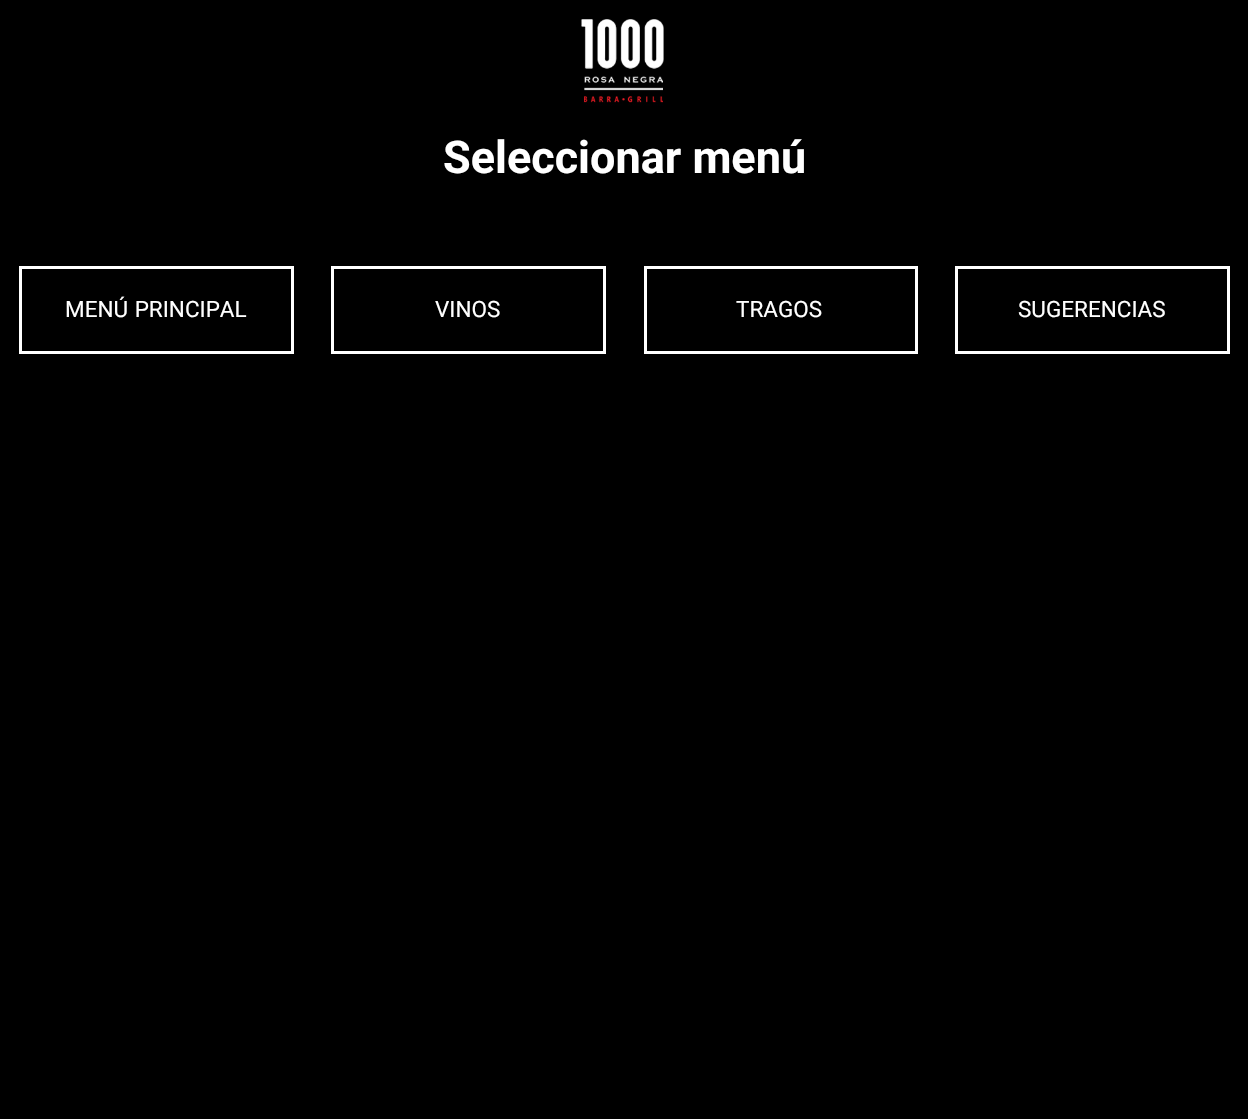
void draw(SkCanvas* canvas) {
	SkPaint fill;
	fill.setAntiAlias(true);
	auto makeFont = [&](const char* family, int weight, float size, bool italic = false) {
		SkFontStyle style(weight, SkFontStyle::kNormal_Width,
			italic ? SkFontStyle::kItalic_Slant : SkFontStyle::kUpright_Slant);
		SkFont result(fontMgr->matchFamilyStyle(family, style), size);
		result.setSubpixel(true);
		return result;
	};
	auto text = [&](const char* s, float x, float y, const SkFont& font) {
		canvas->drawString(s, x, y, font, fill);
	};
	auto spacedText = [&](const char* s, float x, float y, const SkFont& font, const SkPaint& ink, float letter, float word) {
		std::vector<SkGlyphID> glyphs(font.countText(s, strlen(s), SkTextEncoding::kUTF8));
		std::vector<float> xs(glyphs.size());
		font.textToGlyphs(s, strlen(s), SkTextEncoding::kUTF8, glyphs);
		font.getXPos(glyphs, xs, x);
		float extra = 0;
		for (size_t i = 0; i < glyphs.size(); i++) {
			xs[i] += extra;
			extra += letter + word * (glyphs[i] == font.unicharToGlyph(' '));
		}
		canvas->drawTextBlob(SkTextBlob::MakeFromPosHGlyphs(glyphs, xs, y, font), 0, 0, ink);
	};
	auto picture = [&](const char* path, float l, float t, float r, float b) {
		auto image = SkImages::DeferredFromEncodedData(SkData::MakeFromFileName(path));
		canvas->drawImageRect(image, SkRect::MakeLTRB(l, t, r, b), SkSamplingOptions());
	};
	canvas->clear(0xFF000000);
	picture("image0.png", 581, 19, 664, 106);
	fill.setStyle(SkPaint::kStroke_Style);
	fill.setStrokeWidth(3);
	fill.setColor(0xFFFFFFFF);
	canvas->drawRect(SkRect::MakeLTRB(20.5f, 267.5f, 292.5f, 352.5f), fill);
	canvas->drawRect(SkRect::MakeLTRB(332.5f, 267.5f, 604.5f, 352.5f), fill);
	canvas->drawRect(SkRect::MakeLTRB(645.5f, 267.5f, 916.5f, 352.5f), fill);
	canvas->drawRect(SkRect::MakeLTRB(956.5f, 267.5f, 1228.5f, 352.5f), fill);
	auto font1 = makeFont("Roboto", 700, 45);
	fill.setStyle(SkPaint::kFill_Style);
	text("Seleccionar menú", 443, 173, font1);
	auto font2 = makeFont("Roboto", 400, 22.5f);
	spacedText("MENÚ PRINCIPAL", 65, 317, font2, fill, 0, 1);
	text("VINOS", 435, 317, font2);
	text("TRAGOS", 736, 317, font2);
	text("SUGERENCIAS", 1018, 317, font2);
}
